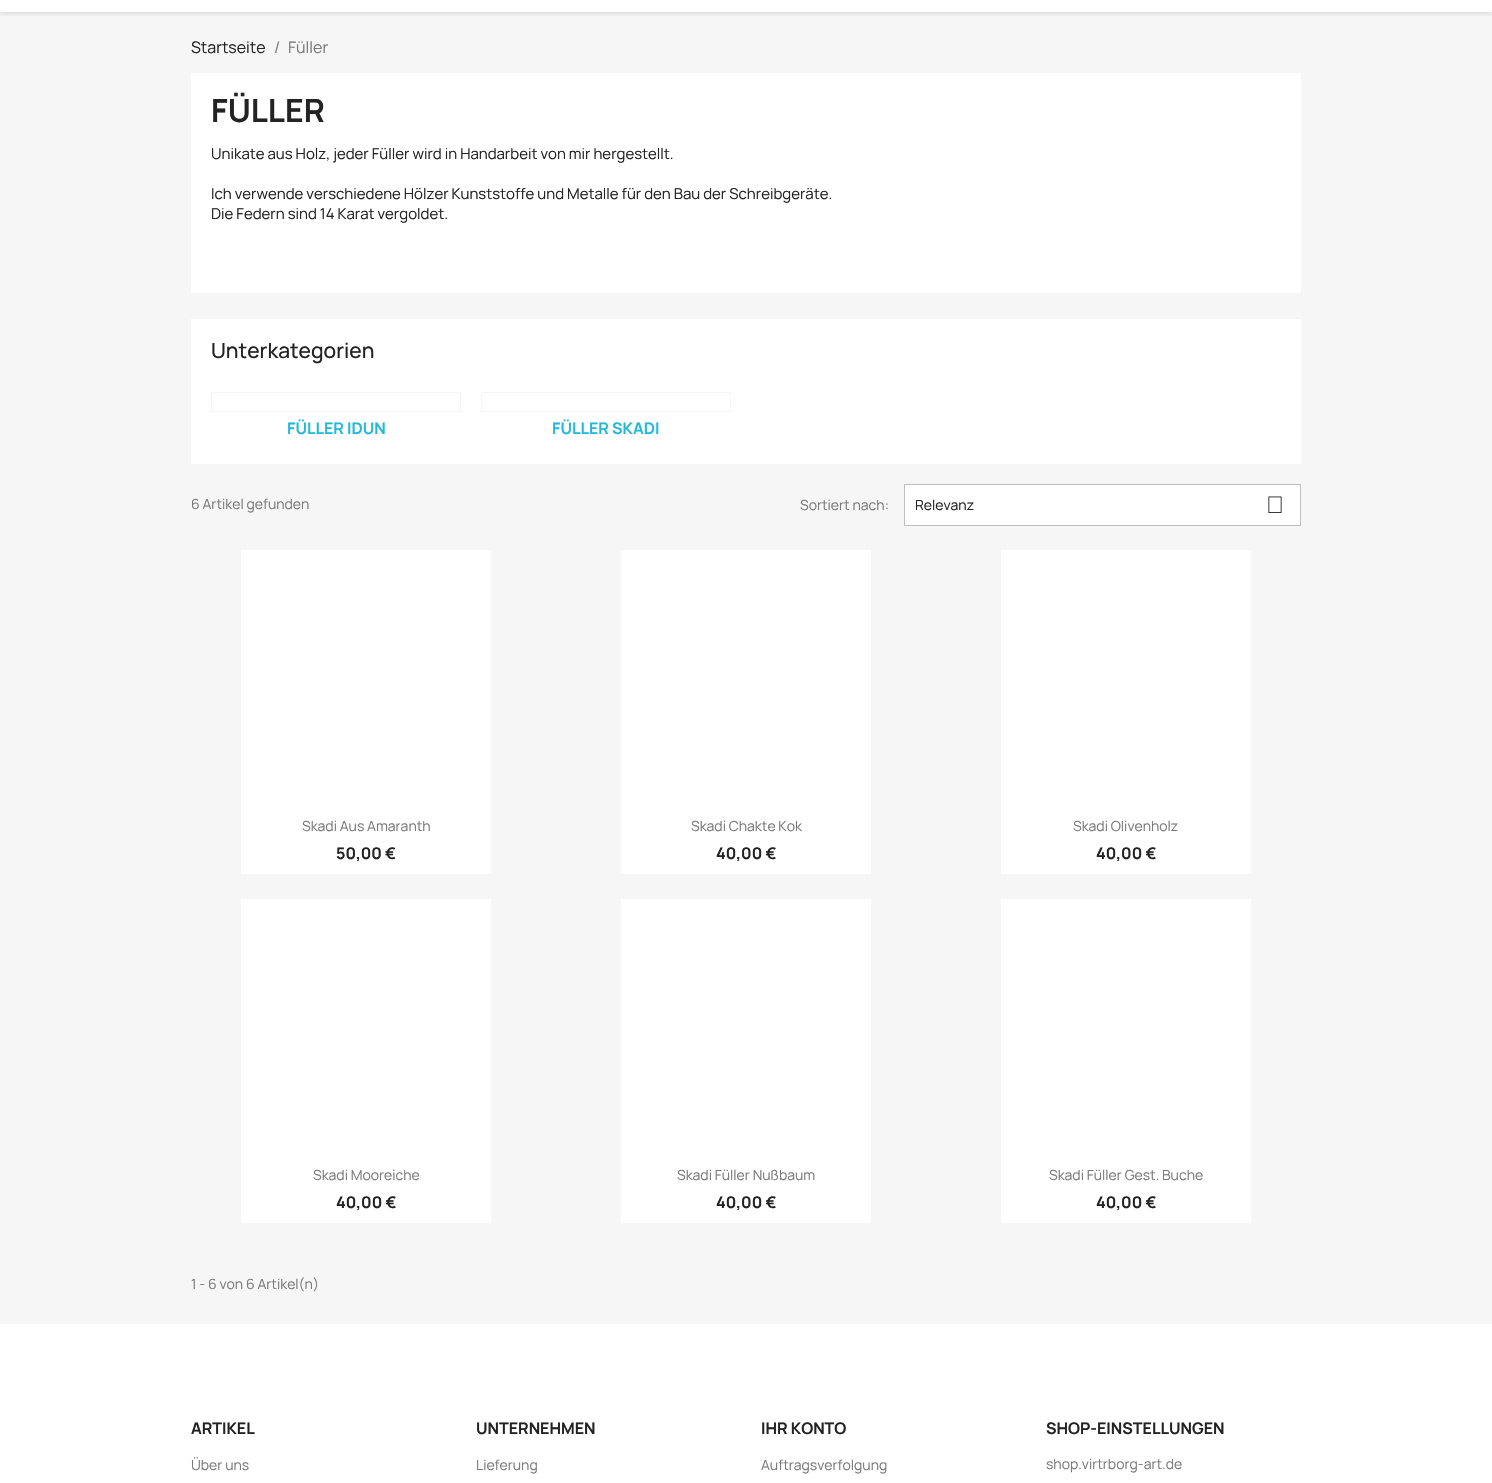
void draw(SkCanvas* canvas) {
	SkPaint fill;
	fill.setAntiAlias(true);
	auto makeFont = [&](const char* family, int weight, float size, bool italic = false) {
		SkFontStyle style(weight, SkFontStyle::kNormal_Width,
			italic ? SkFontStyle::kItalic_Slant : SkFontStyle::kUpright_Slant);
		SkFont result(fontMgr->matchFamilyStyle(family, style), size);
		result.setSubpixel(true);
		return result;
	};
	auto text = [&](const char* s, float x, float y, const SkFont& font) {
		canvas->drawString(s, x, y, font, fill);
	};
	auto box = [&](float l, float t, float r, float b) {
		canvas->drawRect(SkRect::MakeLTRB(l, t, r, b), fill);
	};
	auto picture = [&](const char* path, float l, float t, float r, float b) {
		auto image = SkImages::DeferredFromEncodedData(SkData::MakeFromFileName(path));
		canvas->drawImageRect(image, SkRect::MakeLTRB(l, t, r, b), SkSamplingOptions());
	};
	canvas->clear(0xFFFFFFFF);
	fill.setColor(0xFFF6F6F6);
	box(0, 12, 1492, 1324);
	canvas->save();
	canvas->clipRect(SkRect::MakeLTRB(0, 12, 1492, 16));
	fill.setColor(0x1C000000);
	fill.setMaskFilter(SkMaskFilter::MakeBlur(kNormal_SkBlurStyle, 2.5f));
	canvas->drawRect(SkRect::MakeLTRB(0, -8, 1492, 14), fill);
	fill.setMaskFilter(nullptr);
	canvas->restore();
	fill.setColor(0xFFFFFFFF);
	box(191, 73, 1301, 293);
	box(191, 319, 1301, 464);
	fill.setStyle(SkPaint::kStroke_Style);
	fill.setStrokeWidth(1);
	fill.setColor(0xFFF6F6F6);
	canvas->drawRect(SkRect::MakeLTRB(211.5f, 392.5f, 460.5f, 411.5f), fill);
	canvas->drawRect(SkRect::MakeLTRB(481.5f, 392.5f, 730.5f, 411.5f), fill);
	fill.setStyle(SkPaint::kFill_Style);
	fill.setColor(0xFFFFFFFF);
	canvas->drawRect(SkRect::MakeLTRB(904.5f, 484.5f, 1300.5f, 525.5f), fill);
	fill.setStyle(SkPaint::kStroke_Style);
	fill.setColor(0xFFBFBFBF);
	canvas->drawRect(SkRect::MakeLTRB(904.5f, 484.5f, 1300.5f, 525.5f), fill);
	picture("image0.png", 1268, 496, 1282, 513);
	fill.setStyle(SkPaint::kFill_Style);
	fill.setColor(0xFFFFFFFF);
	box(241, 550, 491, 874);
	box(621, 550, 871, 874);
	box(1001, 550, 1251, 874);
	box(241, 899, 491, 1223);
	box(621, 899, 871, 1223);
	box(1001, 899, 1251, 1223);
	auto font1 = makeFont("Manrope", 400, 16);
	fill.setColor(0xFF232323);
	text("Startseite", 191, 53, font1);
	fill.setColor(0xFF7A7A7A);
	text("/", 274, 53, font1);
	text("Füller", 288, 53, font1);
	auto font2 = makeFont("Manrope", 700, 32);
	fill.setColor(0xFF232323);
	text("FÜLLER", 211, 122, font2);
	auto font3 = makeFont("Manrope", 400, 15);
	text("Unikate aus Holz, jeder Füller wird in Handarbeit von mir hergestellt.", 211, 159, font3);
	text("Ich verwende verschiedene Hölzer Kunststoffe und Metalle für den Bau der Schreibgeräte.", 211, 199, font3);
	text("Die Federn sind 14 Karat vergoldet.", 211, 219, font3);
	auto font4 = makeFont("Manrope", 500, 21);
	text("Unterkategorien", 211, 358, font4);
	auto font5 = makeFont("Manrope", 700, 16);
	fill.setColor(0xFF24B9D7);
	text("FÜLLER IDUN", 287, 434, font5);
	text("FÜLLER SKADI", 552, 434, font5);
	auto font6 = makeFont("Manrope", 400, 14);
	fill.setColor(0xFF7A7A7A);
	text("6 Artikel gefunden", 191, 509, font6);
	text("Sortiert nach:", 800, 510, font6);
	fill.setColor(0xFF232323);
	text("Relevanz", 915, 510, font6);
	fill.setColor(0xFF7A7A7A);
	text("Skadi Aus Amaranth", 302, 831, font6);
	fill.setColor(0xFF232323);
	text("50,00 €", 336, 859, font5);
	fill.setColor(0xFF7A7A7A);
	text("Skadi Chakte Kok", 691, 831, font6);
	fill.setColor(0xFF232323);
	text("40,00 €", 716, 859, font5);
	fill.setColor(0xFF7A7A7A);
	text("Skadi Olivenholz", 1073, 831, font6);
	fill.setColor(0xFF232323);
	text("40,00 €", 1096, 859, font5);
	fill.setColor(0xFF7A7A7A);
	text("Skadi Mooreiche", 313, 1180, font6);
	fill.setColor(0xFF232323);
	text("40,00 €", 336, 1208, font5);
	fill.setColor(0xFF7A7A7A);
	text("Skadi Füller Nußbaum", 677, 1180, font6);
	fill.setColor(0xFF232323);
	text("40,00 €", 716, 1208, font5);
	fill.setColor(0xFF7A7A7A);
	text("Skadi Füller Gest. Buche", 1049, 1180, font6);
	fill.setColor(0xFF232323);
	text("40,00 €", 1096, 1208, font5);
	fill.setColor(0xFF7A7A7A);
	text("1 - 6 von 6 Artikel(n)", 191, 1289, font6);
	fill.setColor(0xFF232323);
	text("ARTIKEL", 191, 1434, font5);
	fill.setColor(0xFF7A7A7A);
	text("Über uns", 191, 1470, font6);
	fill.setColor(0xFF232323);
	text("UNTERNEHMEN", 476, 1434, font5);
	fill.setColor(0xFF7A7A7A);
	text("Lieferung", 476, 1470, font6);
	fill.setColor(0xFF232323);
	text("IHR KONTO", 761, 1434, font5);
	fill.setColor(0xFF7A7A7A);
	text("Auftragsverfolgung", 761, 1470, font6);
	fill.setColor(0xFF232323);
	text("SHOP-EINSTELLUNGEN", 1046, 1434, font5);
	fill.setColor(0xFF7A7A7A);
	text("shop.virtrborg-art.de", 1046, 1469, font6);
}
